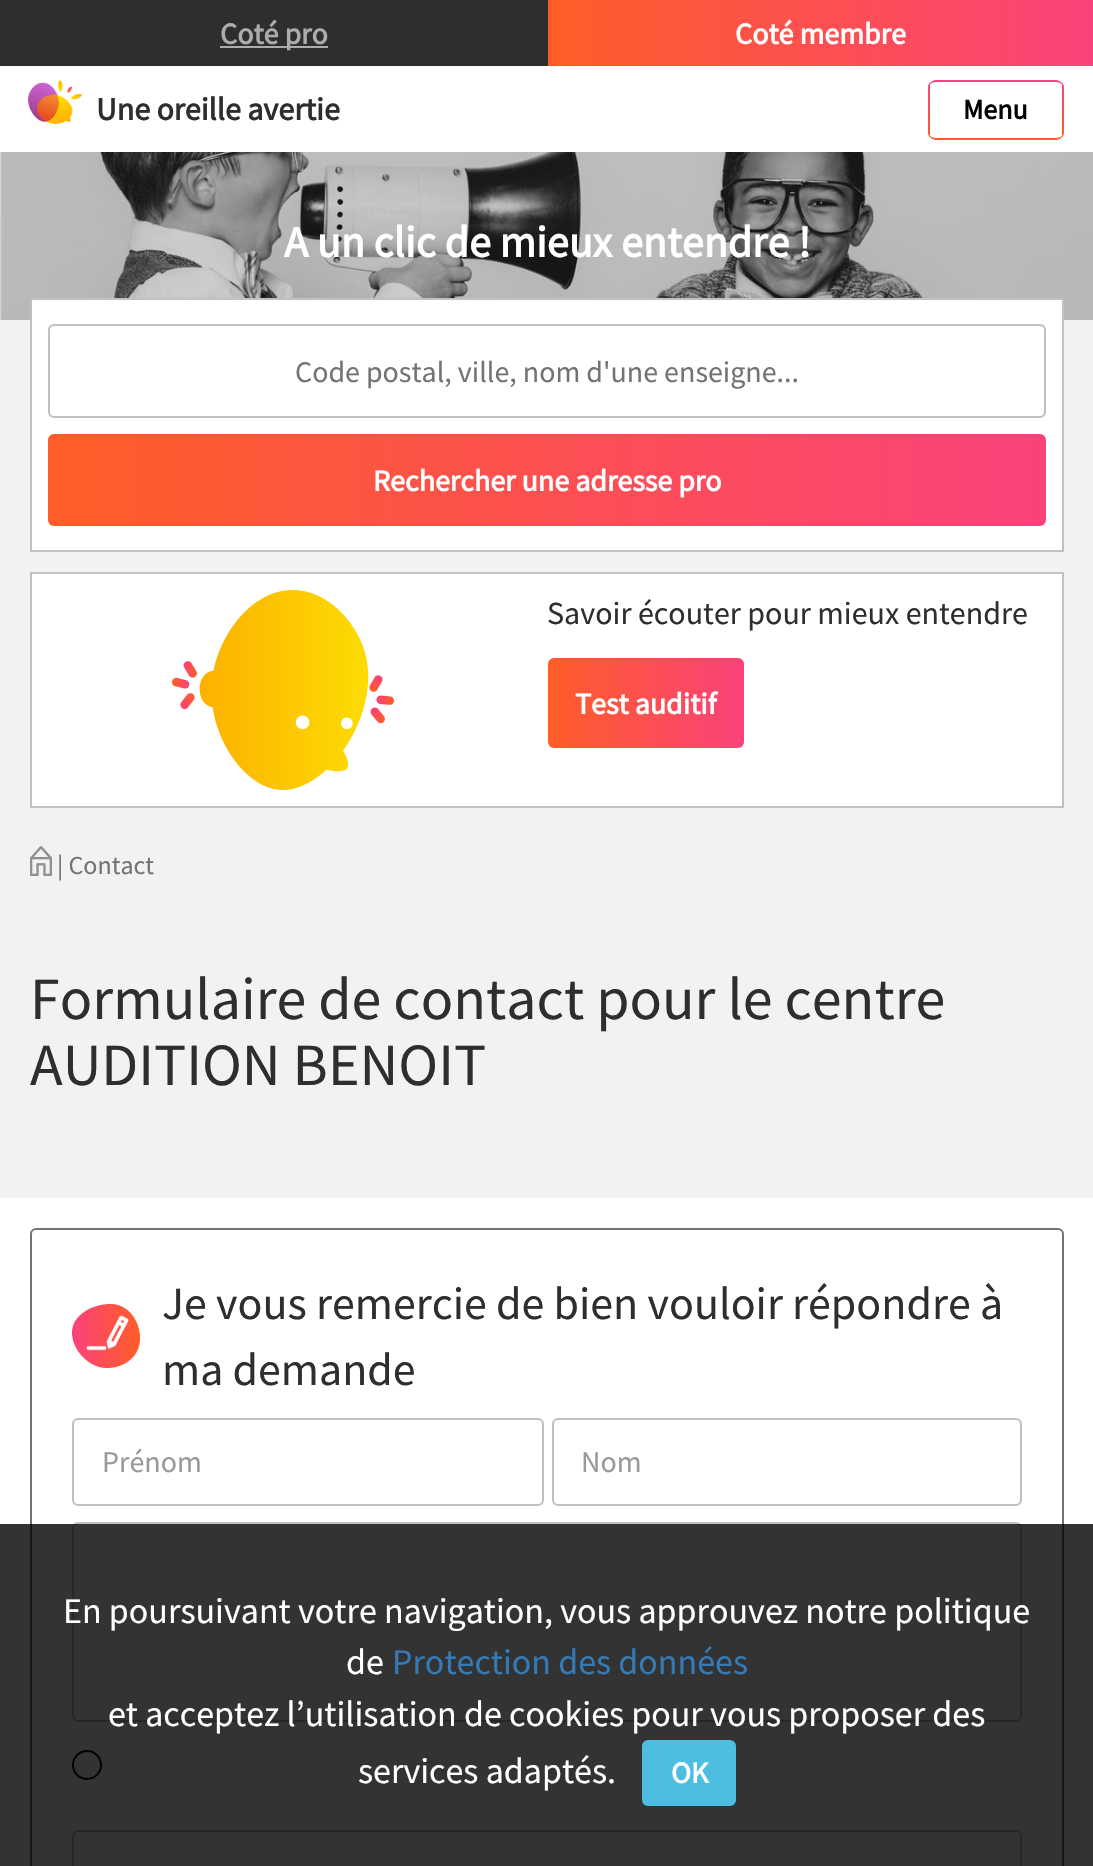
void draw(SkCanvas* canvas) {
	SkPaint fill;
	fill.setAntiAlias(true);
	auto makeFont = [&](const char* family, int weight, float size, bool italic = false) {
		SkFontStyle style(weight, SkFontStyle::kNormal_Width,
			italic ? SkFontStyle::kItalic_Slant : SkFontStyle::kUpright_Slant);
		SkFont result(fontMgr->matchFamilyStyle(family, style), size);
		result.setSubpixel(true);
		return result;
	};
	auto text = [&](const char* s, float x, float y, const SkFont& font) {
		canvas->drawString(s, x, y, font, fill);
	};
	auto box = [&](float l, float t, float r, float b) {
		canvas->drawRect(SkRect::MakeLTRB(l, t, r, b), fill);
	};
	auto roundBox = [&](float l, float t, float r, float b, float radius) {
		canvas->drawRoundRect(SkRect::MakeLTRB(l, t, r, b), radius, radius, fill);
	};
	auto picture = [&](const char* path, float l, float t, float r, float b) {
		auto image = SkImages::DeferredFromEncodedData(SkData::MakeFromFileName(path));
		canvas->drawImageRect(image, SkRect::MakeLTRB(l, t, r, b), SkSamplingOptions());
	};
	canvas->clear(0xFFF2F2F2);
	fill.setColor(0xFF2E2E2E);
	box(0, 0, 548, 66);
	fill.setColor(0xFFACACAC);
	box(220, 46, 328, 48);
	{
		const SkColor colors[] = {0xFFFF5D27, 0xFFFA427A};
		const float stops[] = {0, 1};
		const SkPoint ends[] = {{548, 33}, {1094, 33}};
		fill.setShader(SkGradientShader::MakeLinear(ends, colors, stops, 2, SkTileMode::kClamp));
		fill.setAlpha(255);
	}
	box(548, 0, 1093, 66);
	fill.setShader(nullptr);
	fill.setColor(0xFFFFFFFF);
	box(0, 66, 1093, 152);
	picture("image0.png", 28, 80, 82, 124);
	canvas->save();
	canvas->clipPath(SkPathBuilder().moveTo(936, 80).lineTo(1056, 80).cubicTo(1060.5f, 80, 1064, 83.5f, 1064, 88).lineTo(1064, 132).cubicTo(1064, 136.5f, 1060.5f, 140, 1056, 140).lineTo(936, 140).cubicTo(931.5f, 140, 928, 136.5f, 928, 132).lineTo(928, 88).cubicTo(928, 83.5f, 931.5f, 80, 936, 80).close().detach(), true);
	{
		const SkColor colors[] = {0xFFFF5D27, 0xFFFA427A};
		const float stops[] = {0, 1};
		const SkPoint ends[] = {{1063, 138}, {1063, 82}};
		fill.setShader(SkGradientShader::MakeLinear(ends, colors, stops, 2, SkTileMode::kClamp));
		fill.setAlpha(255);
	}
	box(1062, 82, 1064, 138);
	{
		const SkColor colors[] = {0xFFFF5D27, 0xFFFA427A};
		const float stops[] = {0, 1};
		const SkPoint ends[] = {{929, 138}, {929, 82}};
		fill.setShader(SkGradientShader::MakeLinear(ends, colors, stops, 2, SkTileMode::kClamp));
		fill.setAlpha(255);
	}
	box(928, 82, 930, 138);
	canvas->restore();
	fill.setShader(nullptr);
	fill.setColor(0xFFFA427A);
	canvas->drawPath(SkPathBuilder().moveTo(936, 80).cubicTo(932, 80, 928, 84, 928, 88).cubicTo(928, 85, 932, 82, 936, 82).lineTo(1056, 82).cubicTo(1060, 82, 1064, 85, 1064, 88).cubicTo(1064, 84, 1060, 80, 1056, 80).close().detach(), fill);
	fill.setColor(0xFFFF5D27);
	canvas->drawPath(SkPathBuilder().moveTo(1056, 140).cubicTo(1060, 140, 1064, 136, 1064, 132).cubicTo(1064, 135, 1060, 138, 1056, 138).lineTo(936, 138).cubicTo(932, 138, 928, 135, 928, 132).cubicTo(928, 136, 932, 140, 936, 140).close().detach(), fill);
	picture("image1.png", 0, 152, 1093, 320);
	fill.setColor(0xFFFFFFFF);
	canvas->drawRect(SkRect::MakeLTRB(31, 299, 1063, 551), fill);
	fill.setStyle(SkPaint::kStroke_Style);
	fill.setStrokeWidth(2);
	fill.setColor(0xFFC1C1C1);
	canvas->drawRect(SkRect::MakeLTRB(31, 299, 1063, 551), fill);
	fill.setColor(0xFFBFBFBF);
	canvas->drawRoundRect(SkRect::MakeLTRB(49, 325, 1045, 417), 5, 5, fill);
	fill.setStyle(SkPaint::kFill_Style);
	{
		const SkColor colors[] = {0xFFFF5D27, 0xFFFA427A};
		const float stops[] = {0, 1};
		const SkPoint ends[] = {{48, 480}, {1046, 480}};
		fill.setShader(SkGradientShader::MakeLinear(ends, colors, stops, 2, SkTileMode::kClamp));
		fill.setAlpha(255);
	}
	roundBox(48, 434, 1046, 526, 6);
	fill.setShader(nullptr);
	fill.setColor(0xFFFFFFFF);
	canvas->drawRect(SkRect::MakeLTRB(31, 573, 1063, 807), fill);
	fill.setStyle(SkPaint::kStroke_Style);
	fill.setColor(0xFFC1C1C1);
	canvas->drawRect(SkRect::MakeLTRB(31, 573, 1063, 807), fill);
	picture("image2.png", 172, 590, 394, 790);
	fill.setStyle(SkPaint::kFill_Style);
	{
		const SkColor colors[] = {0xFFFF5D27, 0xFFFA427A};
		const float stops[] = {0, 1};
		const SkPoint ends[] = {{548, 703}, {744, 703}};
		fill.setShader(SkGradientShader::MakeLinear(ends, colors, stops, 2, SkTileMode::kClamp));
		fill.setAlpha(255);
	}
	roundBox(548, 658, 744, 748, 6);
	picture("image3.png", 30, 846, 52, 876);
	fill.setShader(nullptr);
	fill.setColor(0xFFFFFFFF);
	box(0, 1198, 1093, 1866);
	fill.setStyle(SkPaint::kStroke_Style);
	fill.setColor(0xFF737373);
	canvas->drawRoundRect(SkRect::MakeLTRB(31, 1229, 1063, 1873), 5, 5, fill);
	picture("image4.png", 72, 1304, 140, 1368);
	fill.setColor(0xFFBFBFBF);
	canvas->drawRoundRect(SkRect::MakeLTRB(73, 1419, 543, 1505), 5, 5, fill);
	canvas->drawRoundRect(SkRect::MakeLTRB(553, 1419, 1021, 1505), 5, 5, fill);
	canvas->drawRoundRect(SkRect::MakeLTRB(73, 1523, 1021, 1721), 5, 5, fill);
	fill.setColor(0xFF000000);
	canvas->drawCircle(87, 1765, 14, fill);
	fill.setColor(0xFFBFBFBF);
	canvas->drawRoundRect(SkRect::MakeLTRB(73, 1831, 1021, 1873), 5, 5, fill);
	fill.setStyle(SkPaint::kFill_Style);
	fill.setColor(0xCC000000);
	box(0, 1524, 1093, 1866);
	fill.setColor(0xFF4DBEE0);
	roundBox(642, 1740, 736, 1806, 6);
	auto font1 = makeFont("Source Sans Pro", 700, 30);
	fill.setColor(0xFFACACAC);
	text("Coté pro", 220, 44, font1);
	fill.setColor(0xFFFFFFFF);
	text("Coté membre", 735, 44, font1);
	auto font2 = makeFont("Source Sans Pro", 700, 32);
	fill.setColor(0xFF2E2E2E);
	text("Une oreille avertie", 96, 120, font2);
	auto font3 = makeFont("Source Sans Pro", 700, 28);
	fill.setColor(0xFF000000);
	text("Menu", 963, 119, font3);
	auto font4 = makeFont("Source Sans Pro", 700, 44);
	fill.setColor(0xFFFFFFFF);
	text("A un clic de mieux entendre !", 284, 257, font4);
	auto font5 = makeFont("Source Sans Pro", 400, 30);
	fill.setColor(0xFF737373);
	text("Code postal, ville, nom d'une enseigne...", 295, 382, font5);
	fill.setColor(0xFFFFFFFF);
	text("Rechercher une adresse pro", 373, 491, font1);
	auto font6 = makeFont("Source Sans Pro", 400, 32);
	fill.setColor(0xFF2E2E2E);
	text("Savoir écouter pour mieux entendre", 547, 624, font6);
	fill.setColor(0xFFFFFFFF);
	text("Test auditif", 575, 714, font1);
	auto font7 = makeFont("Source Sans Pro", 400, 26);
	fill.setColor(0xFF737373);
	text("| Contact", 57, 874, font7);
	auto font8 = makeFont("Source Sans Pro", 400, 60);
	fill.setColor(0xFF2E2E2E);
	text("Formulaire de contact pour le centre", 30, 1019, font8);
	text("AUDITION BENOIT", 30, 1085, font8);
	auto font9 = makeFont("Source Sans Pro", 400, 46);
	text("Je vous remercie de bien vouloir répondre à", 162, 1319, font9);
	text("ma demande", 162, 1385, font9);
	fill.setColor(0xFF999999);
	text("Prénom", 102, 1472, font5);
	text("Nom", 581, 1472, font5);
	auto font10 = makeFont("Source Sans Pro", 400, 36);
	fill.setColor(0xFFFFFFFF);
	text("En poursuivant votre navigation, vous approuvez notre politique", 63, 1623, font10);
	text("de", 346, 1674, font10);
	fill.setColor(0xFF337AB7);
	text("Protection des données", 392, 1674, font10);
	fill.setColor(0xFFFFFFFF);
	text("et acceptez l’utilisation de cookies pour vous proposer des", 108, 1726, font10);
	text("services adaptés.", 358, 1783, font10);
	text("OK", 671, 1783, font1);
}
